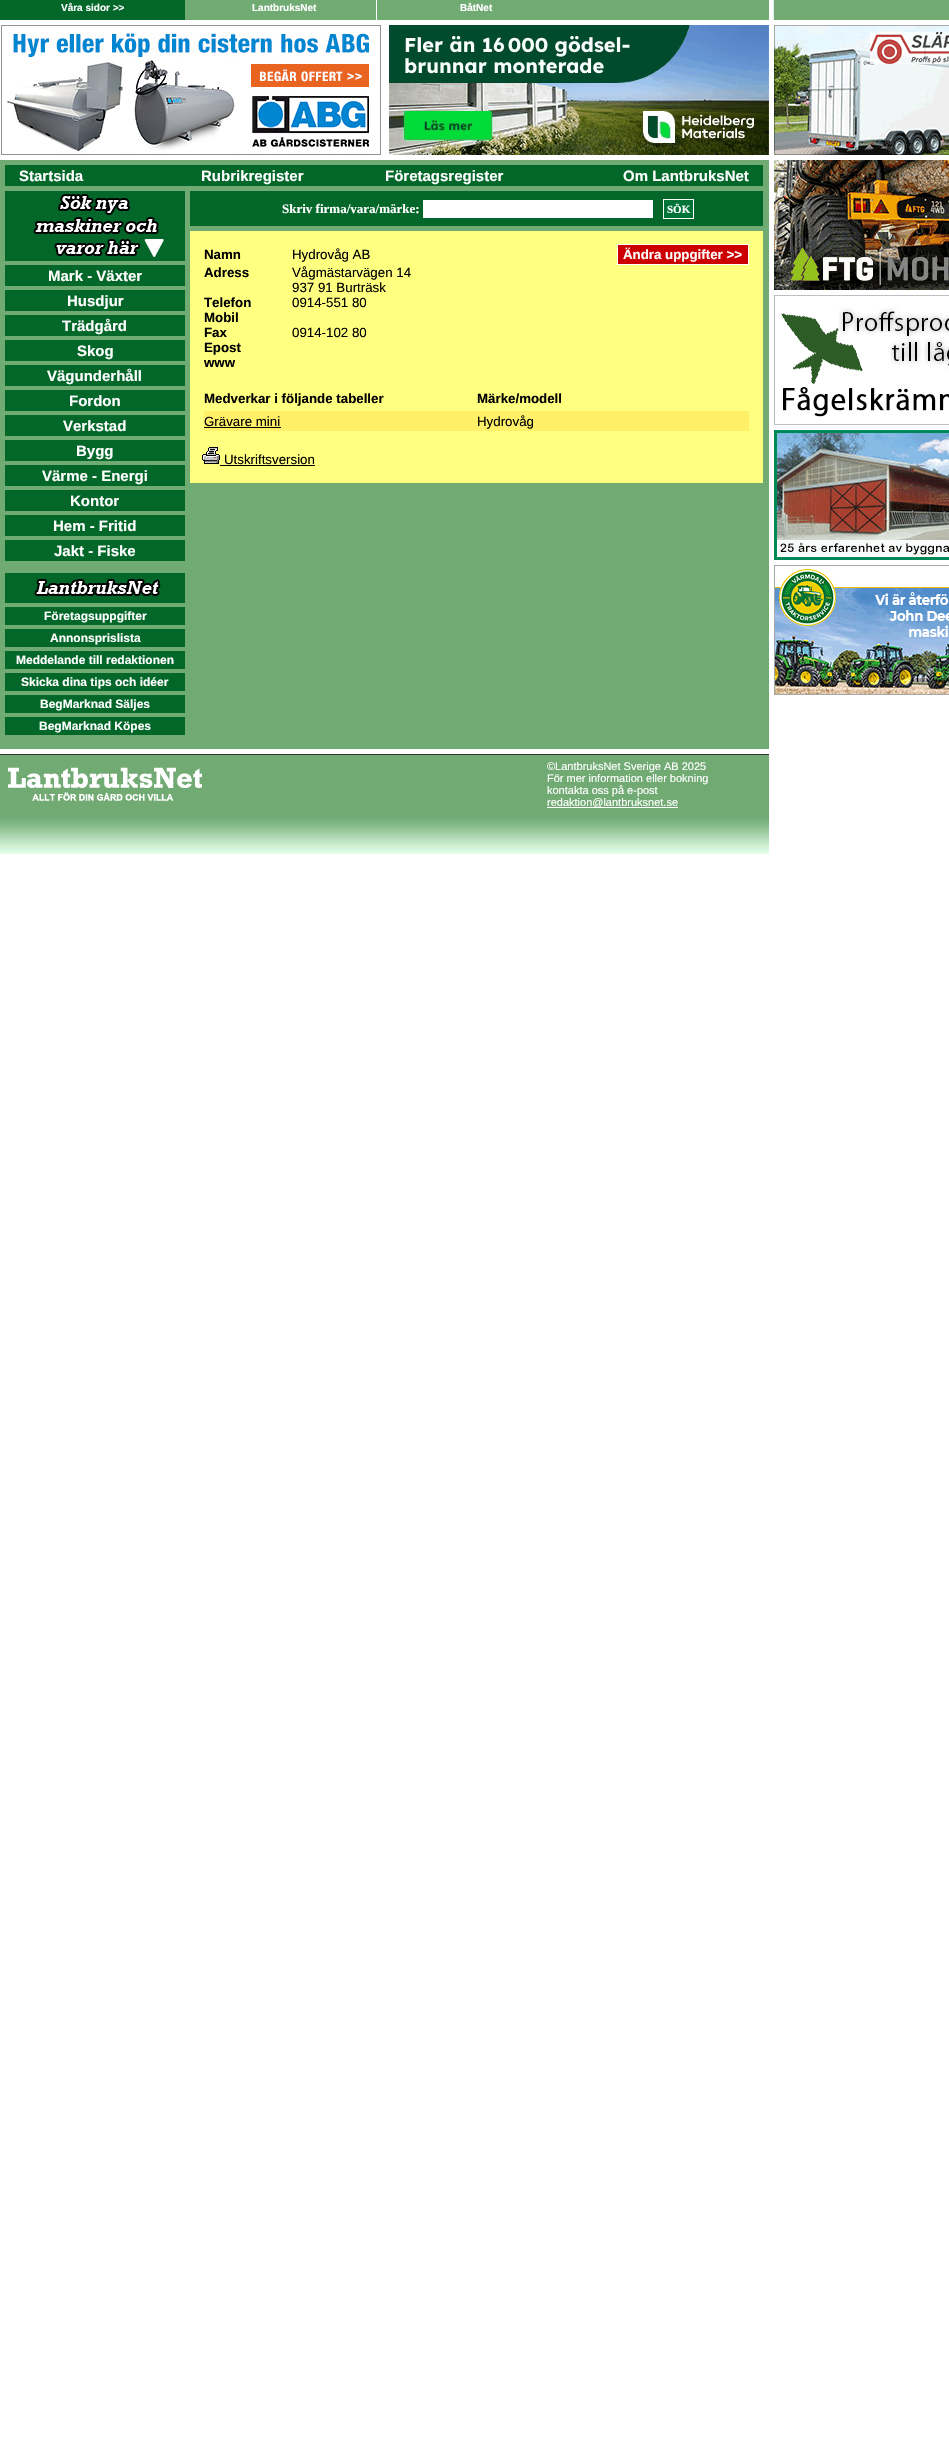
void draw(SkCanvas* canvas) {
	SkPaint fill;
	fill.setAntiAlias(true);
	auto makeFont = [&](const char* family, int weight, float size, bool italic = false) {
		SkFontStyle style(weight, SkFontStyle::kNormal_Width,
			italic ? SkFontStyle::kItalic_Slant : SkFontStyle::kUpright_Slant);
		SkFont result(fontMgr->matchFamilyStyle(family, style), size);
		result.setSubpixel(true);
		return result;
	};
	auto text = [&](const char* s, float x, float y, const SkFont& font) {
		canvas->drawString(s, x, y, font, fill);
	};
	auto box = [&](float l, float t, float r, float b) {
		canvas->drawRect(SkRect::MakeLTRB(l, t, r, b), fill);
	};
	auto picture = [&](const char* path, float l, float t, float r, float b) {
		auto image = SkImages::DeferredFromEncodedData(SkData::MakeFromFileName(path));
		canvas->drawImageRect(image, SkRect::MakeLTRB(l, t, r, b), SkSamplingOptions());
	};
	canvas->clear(0xFFFFFFFF);
	fill.setColor(0xFF71AB74);
	box(185, 0, 769, 20);
	fill.setColor(0xFF036729);
	box(0, 0, 185, 20);
	fill.setColor(0xFFFFFFFF);
	box(376, 0, 377, 20);
	picture("image0.png", 772, 0, 949, 20);
	picture("image1.png", 1, 25, 381, 155);
	picture("image2.png", 389, 25, 769, 155);
	picture("image3.png", 774, 25, 949, 155);
	fill.setColor(0xFF71AB74);
	box(0, 160, 769, 749);
	fill.setColor(0xFF036729);
	box(5, 165, 763, 186);
	box(5, 191, 185, 261);
	picture("image4.png", 33, 194, 164, 257);
	box(5, 265, 185, 286);
	box(5, 290, 185, 311);
	box(5, 315, 185, 336);
	box(5, 340, 185, 361);
	box(5, 365, 185, 386);
	box(5, 390, 185, 411);
	box(5, 415, 185, 436);
	box(5, 440, 185, 461);
	box(5, 465, 185, 486);
	box(5, 490, 185, 511);
	box(5, 515, 185, 536);
	box(5, 540, 185, 561);
	box(5, 573, 185, 603);
	picture("image5.png", 34, 579, 161, 596);
	box(5, 607, 185, 625);
	box(5, 629, 185, 647);
	box(5, 651, 185, 669);
	box(5, 673, 185, 691);
	box(5, 695, 185, 713);
	box(5, 717, 185, 735);
	box(190, 191, 763, 226);
	fill.setColor(0xFFFFFFFF);
	box(423, 200, 653, 218);
	fill.setColor(0xFF007336);
	canvas->drawRect(SkRect::MakeLTRB(663.5f, 199.5f, 693.5f, 218.5f), fill);
	fill.setStyle(SkPaint::kStroke_Style);
	fill.setStrokeWidth(1);
	fill.setColor(0xFFFFFFFF);
	canvas->drawRect(SkRect::MakeLTRB(663.5f, 199.5f, 693.5f, 218.5f), fill);
	fill.setStyle(SkPaint::kFill_Style);
	fill.setColor(0xFFFFFF80);
	box(190, 231, 763, 483);
	fill.setColor(0xFFCC0000);
	canvas->drawRect(SkRect::MakeLTRB(617.5f, 244.5f, 748.5f, 264.5f), fill);
	fill.setStyle(SkPaint::kStroke_Style);
	fill.setColor(0xFFFFFFFF);
	canvas->drawRect(SkRect::MakeLTRB(617.5f, 244.5f, 748.5f, 264.5f), fill);
	fill.setStyle(SkPaint::kFill_Style);
	fill.setColor(0xFFFFF068);
	box(204, 411, 749, 431);
	fill.setColor(0xFF000000);
	box(204, 427, 281, 428);
	picture("image6.png", 202, 447, 220, 464);
	box(220, 465, 315, 466);
	picture("image7.png", 774, 160, 949, 290);
	picture("image8.png", 774, 295, 949, 425);
	picture("image9.png", 774, 430, 949, 560);
	picture("image10.png", 774, 565, 949, 695);
	picture("image11.png", 0, 755, 542, 854);
	fill.setColor(0xFF333333);
	box(0, 754, 769, 755);
	picture("image12.png", 8, 767, 202, 801);
	picture("image13.png", 542, 755, 762, 854);
	fill.setColor(0xFFFFFFFF);
	box(547, 807, 678, 808);
	picture("image14.png", 762, 755, 769, 854);
	auto font1 = makeFont("Liberation Sans", 700, 10);
	text("Våra sidor >>", 61, 11, font1);
	text("LantbruksNet", 252, 11, font1);
	text("BåtNet", 460, 11, font1);
	auto font2 = makeFont("Liberation Sans", 700, 15);
	text("Startsida", 19, 181, font2);
	text("Rubrikregister", 201, 181, font2);
	text("Företagsregister", 385, 181, font2);
	text("Om LantbruksNet", 623, 181, font2);
	text("Mark - Växter", 48, 281, font2);
	text("Husdjur", 67, 306, font2);
	text("Trädgård", 62, 331, font2);
	text("Skog", 77, 356, font2);
	text("Vägunderhåll", 47, 381, font2);
	text("Fordon", 69, 406, font2);
	text("Verkstad", 63, 431, font2);
	text("Bygg", 76, 456, font2);
	text("Värme - Energi", 42, 481, font2);
	text("Kontor", 70, 506, font2);
	text("Hem - Fritid", 53, 531, font2);
	text("Jakt - Fiske", 54, 556, font2);
	auto font3 = makeFont("Liberation Sans", 700, 12);
	text("Företagsuppgifter", 44, 620, font3);
	text("Annonsprislista", 50, 642, font3);
	text("Meddelande till redaktionen", 16, 664, font3);
	text("Skicka dina tips och idéer", 21, 686, font3);
	text("BegMarknad Säljes", 40, 708, font3);
	text("BegMarknad Köpes", 39, 730, font3);
	auto font4 = makeFont("Liberation Serif", 700, 13);
	text("Skriv firma/vara/märke:", 282, 213, font4);
	auto font5 = makeFont("Liberation Serif", 700, 11);
	text("SÖK", 667, 213, font5);
	auto font6 = makeFont("Liberation Sans", 700, 13.3f);
	fill.setColor(0xFF000000);
	text("Namn", 204, 259, font6);
	auto font7 = makeFont("Liberation Sans", 400, 13.3f);
	text("Hydrovåg AB", 292, 259, font7);
	fill.setColor(0xFFFFFFFF);
	text("Ändra uppgifter >>", 623, 259, font6);
	fill.setColor(0xFF000000);
	text("Adress", 204, 277, font6);
	text("Vågmästarvägen 14", 292, 277, font7);
	text("937 91 Burträsk", 292, 292, font7);
	text("Telefon", 204, 307, font6);
	text("0914-551 80", 292, 307, font7);
	text("Mobil", 204, 322, font6);
	text("Fax", 204, 337, font6);
	text("0914-102 80", 292, 337, font7);
	text("Epost", 204, 352, font6);
	text("www", 204, 367, font6);
	text("Medverkar i följande tabeller", 204, 403, font6);
	text("Märke/modell", 477, 403, font6);
	text("Grävare mini", 204, 426, font7);
	text("Hydrovåg", 477, 426, font7);
	text("Utskriftsversion", 224, 464, font7);
	auto font8 = makeFont("Liberation Sans", 400, 11);
	fill.setColor(0xFFFFFFFF);
	text("©LantbruksNet Sverige AB 2025", 547, 770, font8);
	text("För mer information eller bokning", 547, 782, font8);
	text("kontakta oss på e-post", 547, 794, font8);
	text("redaktion@lantbruksnet.se", 547, 806, font8);
}
